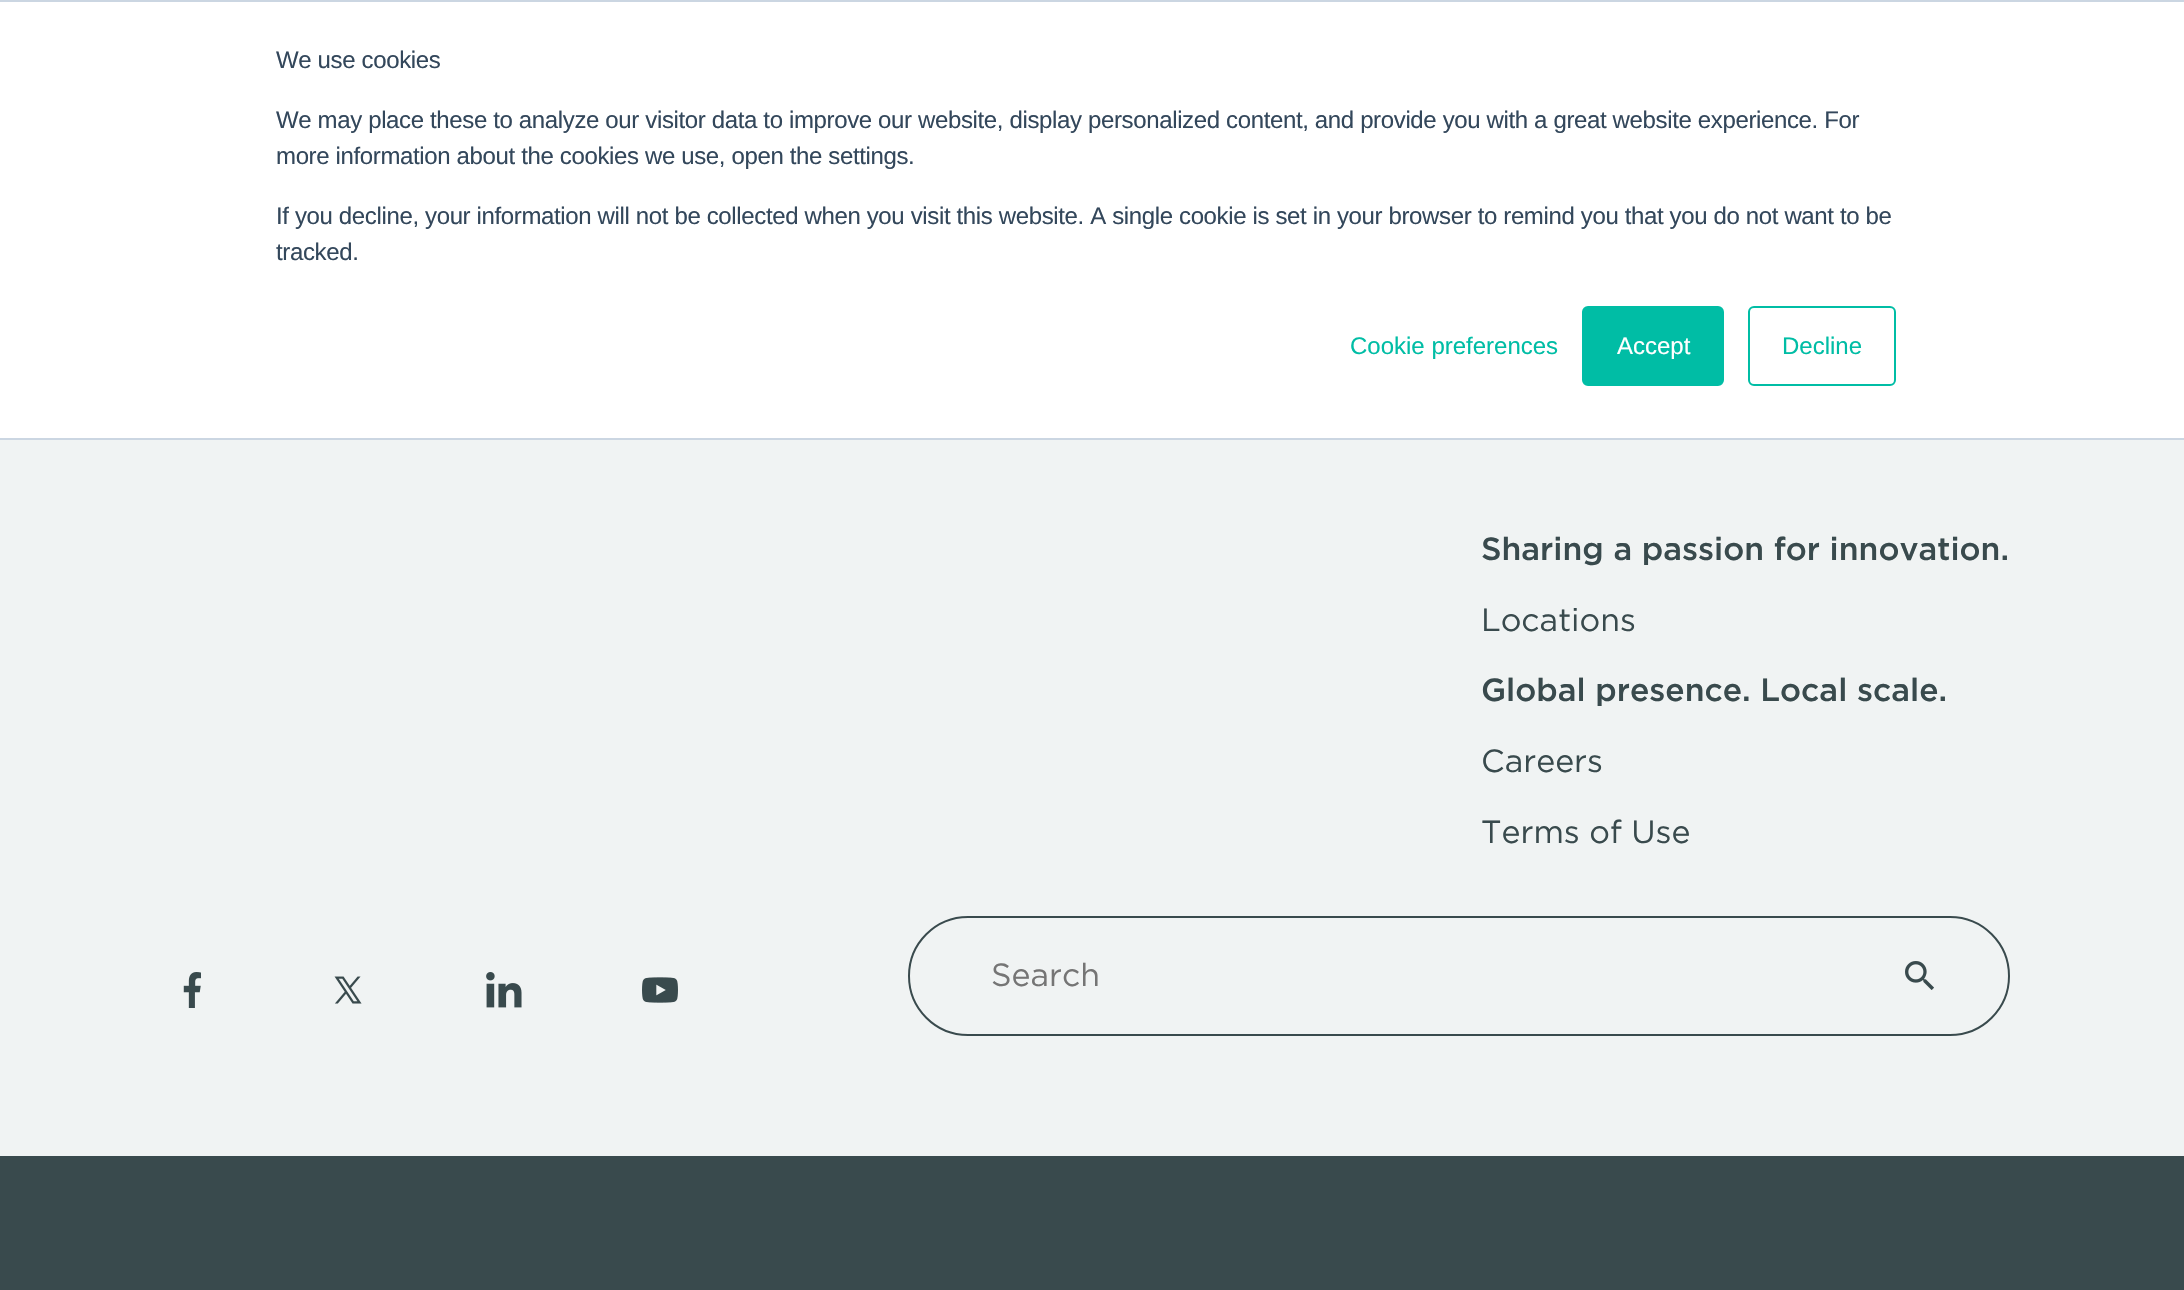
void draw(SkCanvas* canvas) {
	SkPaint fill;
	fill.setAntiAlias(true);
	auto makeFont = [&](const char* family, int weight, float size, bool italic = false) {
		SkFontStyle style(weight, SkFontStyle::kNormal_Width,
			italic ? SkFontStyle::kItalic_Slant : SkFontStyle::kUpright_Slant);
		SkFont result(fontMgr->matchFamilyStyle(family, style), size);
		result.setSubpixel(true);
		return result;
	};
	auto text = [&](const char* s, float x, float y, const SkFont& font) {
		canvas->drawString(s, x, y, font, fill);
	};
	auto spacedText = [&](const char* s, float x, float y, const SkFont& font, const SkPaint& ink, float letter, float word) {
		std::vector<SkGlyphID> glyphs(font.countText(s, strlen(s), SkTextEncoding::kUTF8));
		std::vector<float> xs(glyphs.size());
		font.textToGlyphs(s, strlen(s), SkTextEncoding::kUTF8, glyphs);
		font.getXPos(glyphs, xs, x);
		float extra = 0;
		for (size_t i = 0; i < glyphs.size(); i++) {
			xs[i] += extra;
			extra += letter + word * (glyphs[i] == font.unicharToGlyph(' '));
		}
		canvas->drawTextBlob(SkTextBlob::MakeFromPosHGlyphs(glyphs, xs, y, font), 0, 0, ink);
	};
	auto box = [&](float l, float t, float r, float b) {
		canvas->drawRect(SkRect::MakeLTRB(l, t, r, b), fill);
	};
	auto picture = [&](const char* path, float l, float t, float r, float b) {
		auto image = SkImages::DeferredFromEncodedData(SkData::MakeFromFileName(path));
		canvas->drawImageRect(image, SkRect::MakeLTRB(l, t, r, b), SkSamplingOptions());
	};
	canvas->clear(0xFFF0F3F3);
	fill.setColor(0xFFFFFFFF);
	box(0, 2, 2184, 438);
	fill.setColor(0xFFCBD6E2);
	box(0, 0, 2184, 2);
	box(0, 438, 2184, 440);
	fill.setColor(0xFF00BDA5);
	canvas->drawRoundRect(SkRect::MakeLTRB(1583, 307, 1723, 385), 5, 5, fill);
	fill.setStyle(SkPaint::kStroke_Style);
	fill.setStrokeWidth(2);
	canvas->drawRoundRect(SkRect::MakeLTRB(1583, 307, 1723, 385), 5, 5, fill);
	canvas->drawRoundRect(SkRect::MakeLTRB(1749, 307, 1895, 385), 5, 5, fill);
	picture("image0.png", 183, 972, 201, 1008);
	picture("image1.png", 334, 976, 362, 1004);
	picture("image2.png", 486, 972, 522, 1008);
	picture("image3.png", 642, 977, 678, 1003);
	fill.setColor(0xFF394A4D);
	canvas->drawRoundRect(SkRect::MakeLTRB(909, 917, 2009, 1035), 59, 59, fill);
	picture("image4.png", 1905, 961, 1934, 990);
	fill.setStyle(SkPaint::kFill_Style);
	box(0, 1156, 2184, 1290);
	auto font1 = makeFont("Liberation Sans", 400, 24);
	fill.setColor(0xFF33475B);
	spacedText("We use cookies", 276, 68, font1, fill, -0.36f, 0);
	spacedText("We may place these to analyze our visitor data to improve our website, display personalized content, and provide you with a great website experience. For", 276, 128, font1, fill, -0.36f, 0);
	spacedText("more information about the cookies we use, open the settings.", 276, 164, font1, fill, -0.36f, 0);
	spacedText("If you decline, your information will not be collected when you visit this website. A single cookie is set in your browser to remind you that you do not want to be", 276, 224, font1, fill, -0.36f, 0);
	spacedText("tracked.", 276, 260, font1, fill, -0.36f, 0);
	fill.setColor(0xFF00BDA5);
	text("Cookie preferences", 1350, 354, font1);
	fill.setColor(0xFFFFFFFF);
	text("Accept", 1617, 354, font1);
	fill.setColor(0xFF00BDA5);
	text("Decline", 1782, 354, font1);
	auto font2 = makeFont("Gotham", 500, 32);
	fill.setColor(0xFF394A4D);
	text("Sharing a passion for innovation.", 1481, 560, font2);
	auto font3 = makeFont("Gotham", 400, 32);
	text("Locations", 1481, 631, font3);
	text("Global presence. Local scale.", 1481, 701, font2);
	text("Careers", 1481, 772, font3);
	text("Terms of Use", 1481, 843, font3);
	fill.setColor(0xFF757575);
	text("Search", 991, 986, font3);
}
